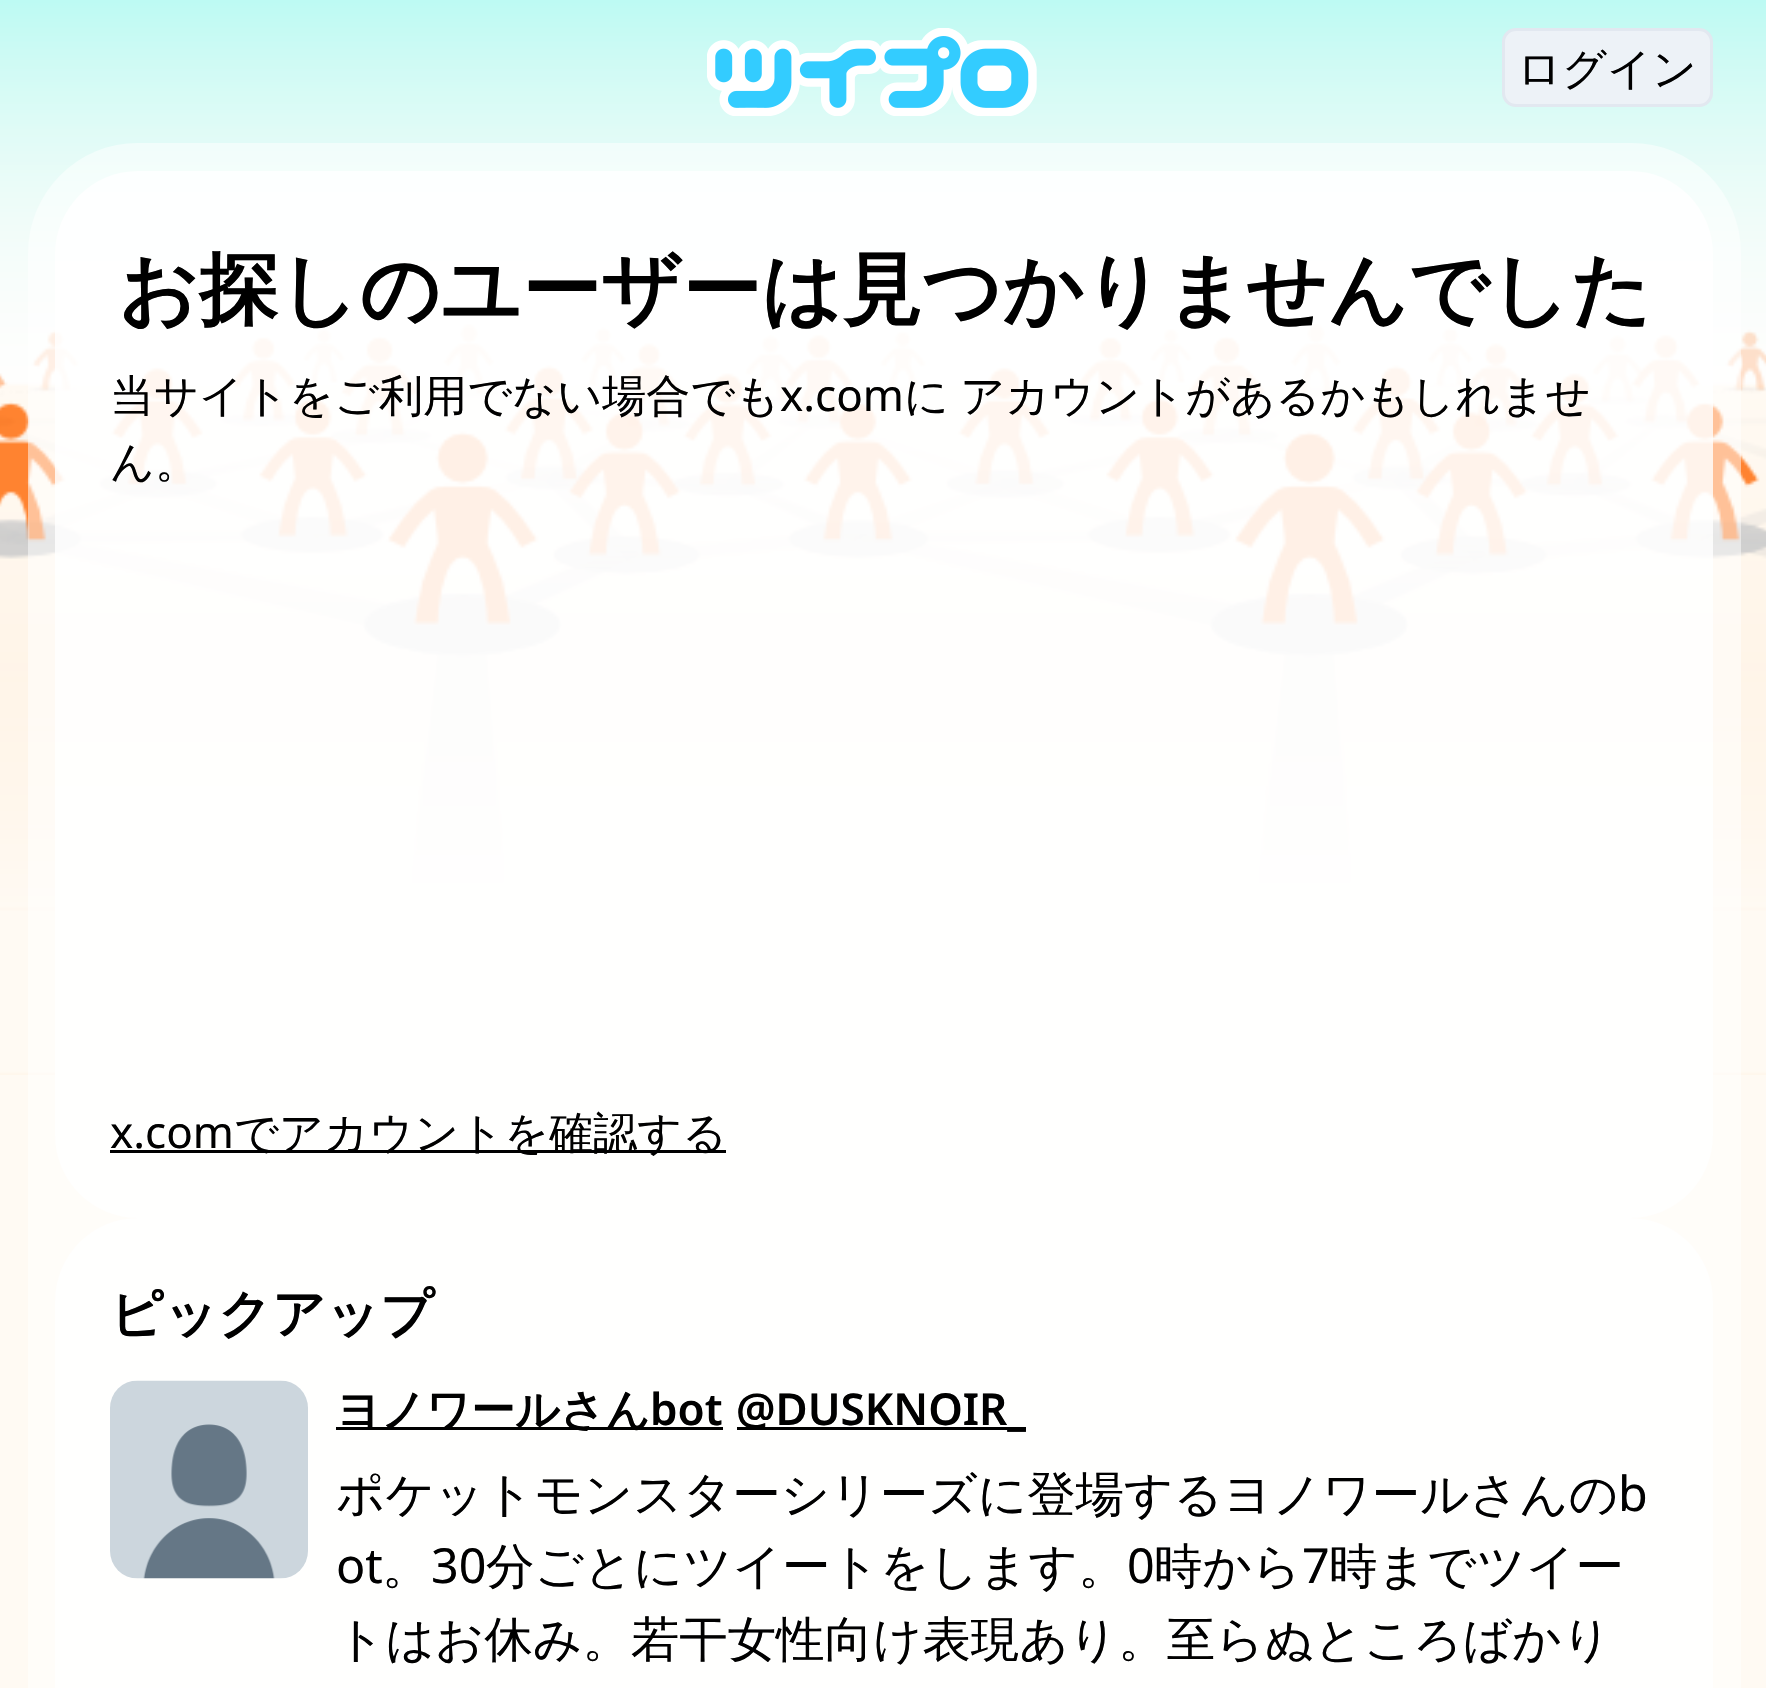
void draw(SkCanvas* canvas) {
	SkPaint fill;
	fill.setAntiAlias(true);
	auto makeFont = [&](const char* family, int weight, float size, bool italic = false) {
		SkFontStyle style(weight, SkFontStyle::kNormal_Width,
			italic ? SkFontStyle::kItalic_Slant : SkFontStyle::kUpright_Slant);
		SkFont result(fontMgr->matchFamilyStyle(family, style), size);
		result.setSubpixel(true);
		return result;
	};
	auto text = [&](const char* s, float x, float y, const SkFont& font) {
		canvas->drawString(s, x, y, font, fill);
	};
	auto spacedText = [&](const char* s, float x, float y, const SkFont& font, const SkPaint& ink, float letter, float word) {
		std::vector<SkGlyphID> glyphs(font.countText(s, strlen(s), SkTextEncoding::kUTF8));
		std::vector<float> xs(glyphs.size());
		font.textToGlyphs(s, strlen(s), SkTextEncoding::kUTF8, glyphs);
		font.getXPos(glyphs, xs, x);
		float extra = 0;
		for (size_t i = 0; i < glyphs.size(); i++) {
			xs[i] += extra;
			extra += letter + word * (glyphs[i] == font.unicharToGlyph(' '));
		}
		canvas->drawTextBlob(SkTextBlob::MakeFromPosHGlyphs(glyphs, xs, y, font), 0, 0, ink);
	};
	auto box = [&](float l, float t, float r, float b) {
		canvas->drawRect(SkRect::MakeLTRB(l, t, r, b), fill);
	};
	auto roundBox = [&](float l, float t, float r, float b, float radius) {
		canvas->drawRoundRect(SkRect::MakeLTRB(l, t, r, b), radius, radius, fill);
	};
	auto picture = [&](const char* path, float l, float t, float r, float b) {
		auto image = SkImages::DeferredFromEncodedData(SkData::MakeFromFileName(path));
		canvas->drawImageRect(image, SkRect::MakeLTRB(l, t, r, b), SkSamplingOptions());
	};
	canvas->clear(0xFFFFFAF3);
	picture("image0.png", 0, 0, 1766, 1075);
	picture("image1.png", 707, 28, 1037, 116);
	fill.setColor(0xFFEDF2F7);
	canvas->drawRoundRect(SkRect::MakeLTRB(1503.5f, 29.5f, 1711.5f, 105.5f), 12.5f, 12.5f, fill);
	fill.setStyle(SkPaint::kStroke_Style);
	fill.setStrokeWidth(3);
	fill.setColor(0xFFE2E8F0);
	canvas->drawRoundRect(SkRect::MakeLTRB(1503.5f, 29.5f, 1711.5f, 105.5f), 12.5f, 12.5f, fill);
	fill.setStyle(SkPaint::kFill_Style);
	fill.setColor(0x80FFFFFF);
	roundBox(28, 143, 1741, 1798, 110);
	fill.setColor(0xCCFFFFFF);
	roundBox(55, 171, 1713, 1218, 83);
	fill.setColor(0xFF000000);
	box(110, 1150, 726, 1153);
	fill.setColor(0xFFFFFFFE);
	roundBox(55, 1218, 1713, 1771, 83);
	picture("image2.png", 110, 1380, 308, 1579);
	fill.setColor(0xFF000000);
	box(336, 1427, 723, 1430);
	box(737, 1427, 1026, 1430);
	auto font1 = makeFont("WenQuanYi Zen Hei", 500, 44);
	text("ログイン", 1517, 84, font1);
	auto font2 = makeFont("WenQuanYi Zen Hei", 700, 79.25f);
	text("お探しのユーザーは見つかりませんでした", 118, 317, font2);
	text("当サイトをご利用でない場合でも", 110, 411, font1);
	auto font3 = makeFont("Noto Sans", 400, 44);
	text("x.com", 780, 411, font3);
	spacedText("に アカウントがあるかもしれませ", 904, 411, font1, fill, 0, -2);
	text("ん。", 110, 477, font1);
	text("x.com", 110, 1148, font3);
	text("でアカウントを確認する", 234, 1148, font1);
	auto font4 = makeFont("WenQuanYi Zen Hei", 700, 52.75f);
	text("ピックアップ", 110, 1332, font4);
	auto font5 = makeFont("WenQuanYi Zen Hei", 700, 44);
	text("ヨノワールさん", 336, 1425, font5);
	auto font6 = makeFont("Noto Sans", 600, 44);
	text("bot", 650, 1425, font6);
	text("@DUSKNOIR_", 736, 1425, font6);
	auto font7 = makeFont("WenQuanYi Zen Hei", 500, 48.4f);
	text("ポケットモンスターシリーズに登場するヨノワールさんの", 336, 1511, font7);
	auto font8 = makeFont("Noto Sans", 400, 48.4f);
	text("b", 1618, 1511, font8);
	text("ot", 336, 1583, font8);
	text("。", 382, 1583, font7);
	text("30", 431, 1583, font8);
	text("分ごとにツイートをします。", 486, 1583, font7);
	text("0", 1127, 1583, font8);
	text("時から", 1154, 1583, font7);
	text("7", 1302, 1583, font8);
	text("時までツイー", 1329, 1583, font7);
	text("トはお休み。若干女性向け表現あり。至らぬところばかり", 336, 1656, font7);
}
